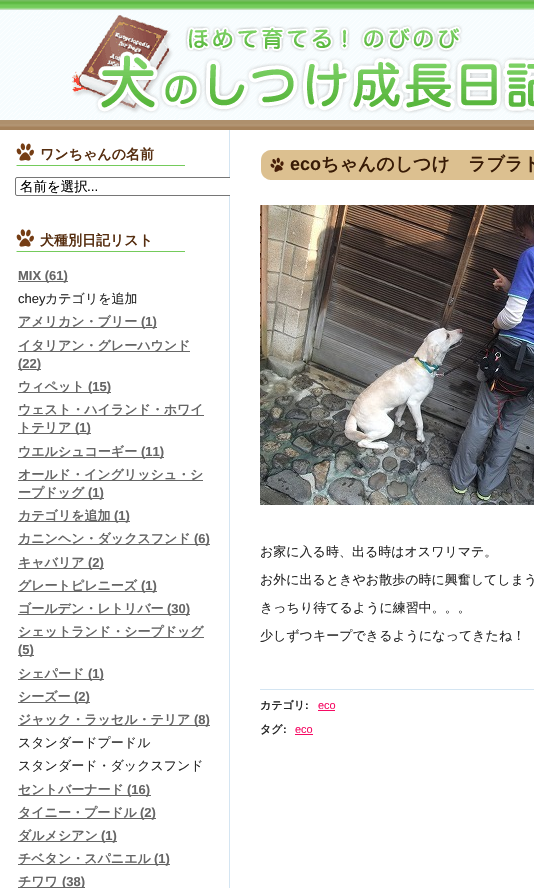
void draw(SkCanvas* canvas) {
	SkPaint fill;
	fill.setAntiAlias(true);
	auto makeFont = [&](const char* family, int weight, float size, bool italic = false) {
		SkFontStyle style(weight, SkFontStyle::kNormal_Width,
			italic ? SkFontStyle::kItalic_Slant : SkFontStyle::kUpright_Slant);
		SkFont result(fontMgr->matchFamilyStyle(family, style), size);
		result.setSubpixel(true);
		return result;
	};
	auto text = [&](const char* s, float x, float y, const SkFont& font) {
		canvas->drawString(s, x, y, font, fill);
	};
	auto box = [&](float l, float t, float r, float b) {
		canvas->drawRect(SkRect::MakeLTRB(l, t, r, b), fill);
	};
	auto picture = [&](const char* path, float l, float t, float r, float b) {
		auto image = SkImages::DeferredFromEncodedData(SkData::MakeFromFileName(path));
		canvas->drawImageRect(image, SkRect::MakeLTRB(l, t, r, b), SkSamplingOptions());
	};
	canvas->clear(0xFFFFFFFF);
	picture("image0.png", 0, 0, 534, 130);
	fill.setColor(0xFFD4E5F2);
	box(229, 130, 230, 888);
	picture("image1.png", 16, 143, 185, 166);
	fill.setColor(0xFFFFFFFF);
	canvas->drawPath(SkPathBuilder().moveTo(17, 177).lineTo(230, 177).lineTo(230, 196).lineTo(17, 196).cubicTo(16, 196, 15, 195, 15, 194).lineTo(15, 179).cubicTo(15, 178, 16, 177, 17, 177).close().detach(), fill);
	picture("image2.png", 261, 150, 534, 180);
	canvas->save();
	canvas->clipRect(SkRect::MakeLTRB(0, 130, 230, 216));
	fill.setStyle(SkPaint::kStroke_Style);
	fill.setStrokeWidth(1);
	fill.setColor(0xFF767676);
	canvas->drawRoundRect(SkRect::MakeLTRB(15.5f, 177.5f, 294.5f, 195.5f), 1.5f, 1.5f, fill);
	canvas->restore();
	picture("image1.png", 16, 229, 185, 252);
	fill.setStyle(SkPaint::kFill_Style);
	fill.setColor(0xFF666666);
	box(18, 281, 68, 282);
	box(18, 327, 157, 328);
	box(18, 351, 190, 352);
	box(18, 369, 41, 370);
	box(18, 392, 111, 393);
	box(18, 415, 204, 416);
	box(18, 433, 91, 434);
	box(18, 457, 164, 458);
	box(18, 480, 203, 481);
	box(18, 498, 104, 499);
	box(18, 521, 130, 522);
	box(18, 544, 210, 545);
	box(18, 568, 104, 569);
	box(18, 591, 157, 592);
	box(18, 614, 190, 615);
	box(18, 637, 204, 638);
	box(18, 655, 34, 656);
	box(18, 679, 104, 680);
	box(18, 702, 90, 703);
	box(18, 725, 210, 726);
	box(18, 795, 151, 796);
	box(18, 818, 156, 819);
	box(18, 841, 117, 842);
	box(18, 864, 170, 865);
	box(18, 887, 85, 888);
	picture("image3.png", 260, 205, 534, 505);
	fill.setColor(0xFFD4E5F2);
	box(260, 689, 534, 690);
	fill.setColor(0xFFF60A63);
	box(318, 710, 335, 711);
	box(295, 734, 313, 735);
	auto font1 = makeFont("WenQuanYi Zen Hei", 700, 14);
	fill.setColor(0xFF562E10);
	text("ワンちゃんの名前", 40, 159, font1);
	auto font2 = makeFont("WenQuanYi Zen Hei", 500, 13.5f);
	fill.setColor(0xFF000000);
	text("名前を選択", 20, 191, font2);
	auto font3 = makeFont("Liberation Sans", 400, 13.5f);
	text("...", 87, 191, font3);
	fill.setColor(0xFF562E10);
	text("犬種別日記リスト", 40, 245, font1);
	auto font4 = makeFont("Liberation Sans", 700, 13);
	fill.setColor(0xFF666666);
	text("MIX (61)", 18, 280, font4);
	auto font5 = makeFont("Liberation Sans", 400, 13);
	fill.setColor(0xFF262626);
	text("chey", 18, 303, font5);
	auto font6 = makeFont("WenQuanYi Zen Hei", 500, 13);
	text("カテゴリを追加", 45, 303, font6);
	auto font7 = makeFont("WenQuanYi Zen Hei", 700, 13);
	fill.setColor(0xFF666666);
	text("アメリカン・ブリー", 18, 326, font7);
	text("(1)", 141, 326, font4);
	text("イタリアン・グレーハウンド", 18, 350, font7);
	text("(22)", 18, 368, font4);
	text("ウィペット", 18, 391, font7);
	text("(15)", 88, 391, font4);
	text("ウェスト・ハイランド・ホワイ", 18, 414, font7);
	text("トテリア", 18, 432, font7);
	text("(1)", 75, 432, font4);
	text("ウエルシュコーギー", 18, 456, font7);
	text("(11)", 141, 456, font4);
	text("オールド・イングリッシュ・シ", 18, 479, font7);
	text("ープドッグ", 18, 497, font7);
	text("(1)", 88, 497, font4);
	text("カテゴリを追加", 18, 520, font7);
	text("(1)", 114, 520, font4);
	text("カニンヘン・ダックスフンド", 18, 543, font7);
	text("(6)", 194, 543, font4);
	text("キャバリア", 18, 567, font7);
	text("(2)", 88, 567, font4);
	text("グレートピレニーズ", 18, 590, font7);
	text("(1)", 141, 590, font4);
	text("ゴールデン・レトリバー", 18, 613, font7);
	text("(30)", 167, 613, font4);
	text("シェットランド・シープドッグ", 18, 636, font7);
	text("(5)", 18, 654, font4);
	text("シェパード", 18, 678, font7);
	text("(1)", 88, 678, font4);
	text("シーズー", 18, 701, font7);
	text("(2)", 74, 701, font4);
	text("ジャック・ラッセル・テリア", 18, 724, font7);
	text("(8)", 194, 724, font4);
	fill.setColor(0xFF262626);
	text("スタンダードプードル", 18, 747, font6);
	text("スタンダード・ダックスフンド", 18, 770, font6);
	fill.setColor(0xFF666666);
	text("セントバーナード", 18, 794, font7);
	text("(16)", 127, 794, font4);
	text("タイニー・プードル", 18, 817, font7);
	text("(2)", 140, 817, font4);
	text("ダルメシアン", 18, 840, font7);
	text("(1)", 101, 840, font4);
	text("チベタン・スパニエル", 18, 863, font7);
	text("(1)", 154, 863, font4);
	text("チワワ", 18, 886, font7);
	text("(38)", 62, 886, font4);
	auto font8 = makeFont("Liberation Sans", 700, 18);
	fill.setColor(0xFF381B06);
	text("eco", 290, 170, font8);
	auto font9 = makeFont("WenQuanYi Zen Hei", 700, 18);
	text("ちゃんのしつけ　ラブラド", 321, 170, font9);
	fill.setColor(0xFF262626);
	text("お家に入る時、出る時はオスワリマテ。", 260, 556, font6);
	text("お外に出るときやお散歩の時に興奮してしまう", 260, 584, font6);
	text("きっちり待てるように練習中。。。", 260, 612, font6);
	text("少しずつキープできるようになってきたね！", 260, 640, font6);
	auto font10 = makeFont("WenQuanYi Zen Hei", 700, 11);
	text("カテゴリ", 260, 709, font10);
	auto font11 = makeFont("Liberation Sans", 700, 11);
	text(":", 305, 709, font11);
	auto font12 = makeFont("Liberation Sans", 400, 11);
	fill.setColor(0xFFF60A63);
	text("eco", 318, 709, font12);
	fill.setColor(0xFF262626);
	text("タグ", 260, 733, font10);
	text(":", 283, 733, font11);
	fill.setColor(0xFFF60A63);
	text("eco", 295, 733, font12);
}
